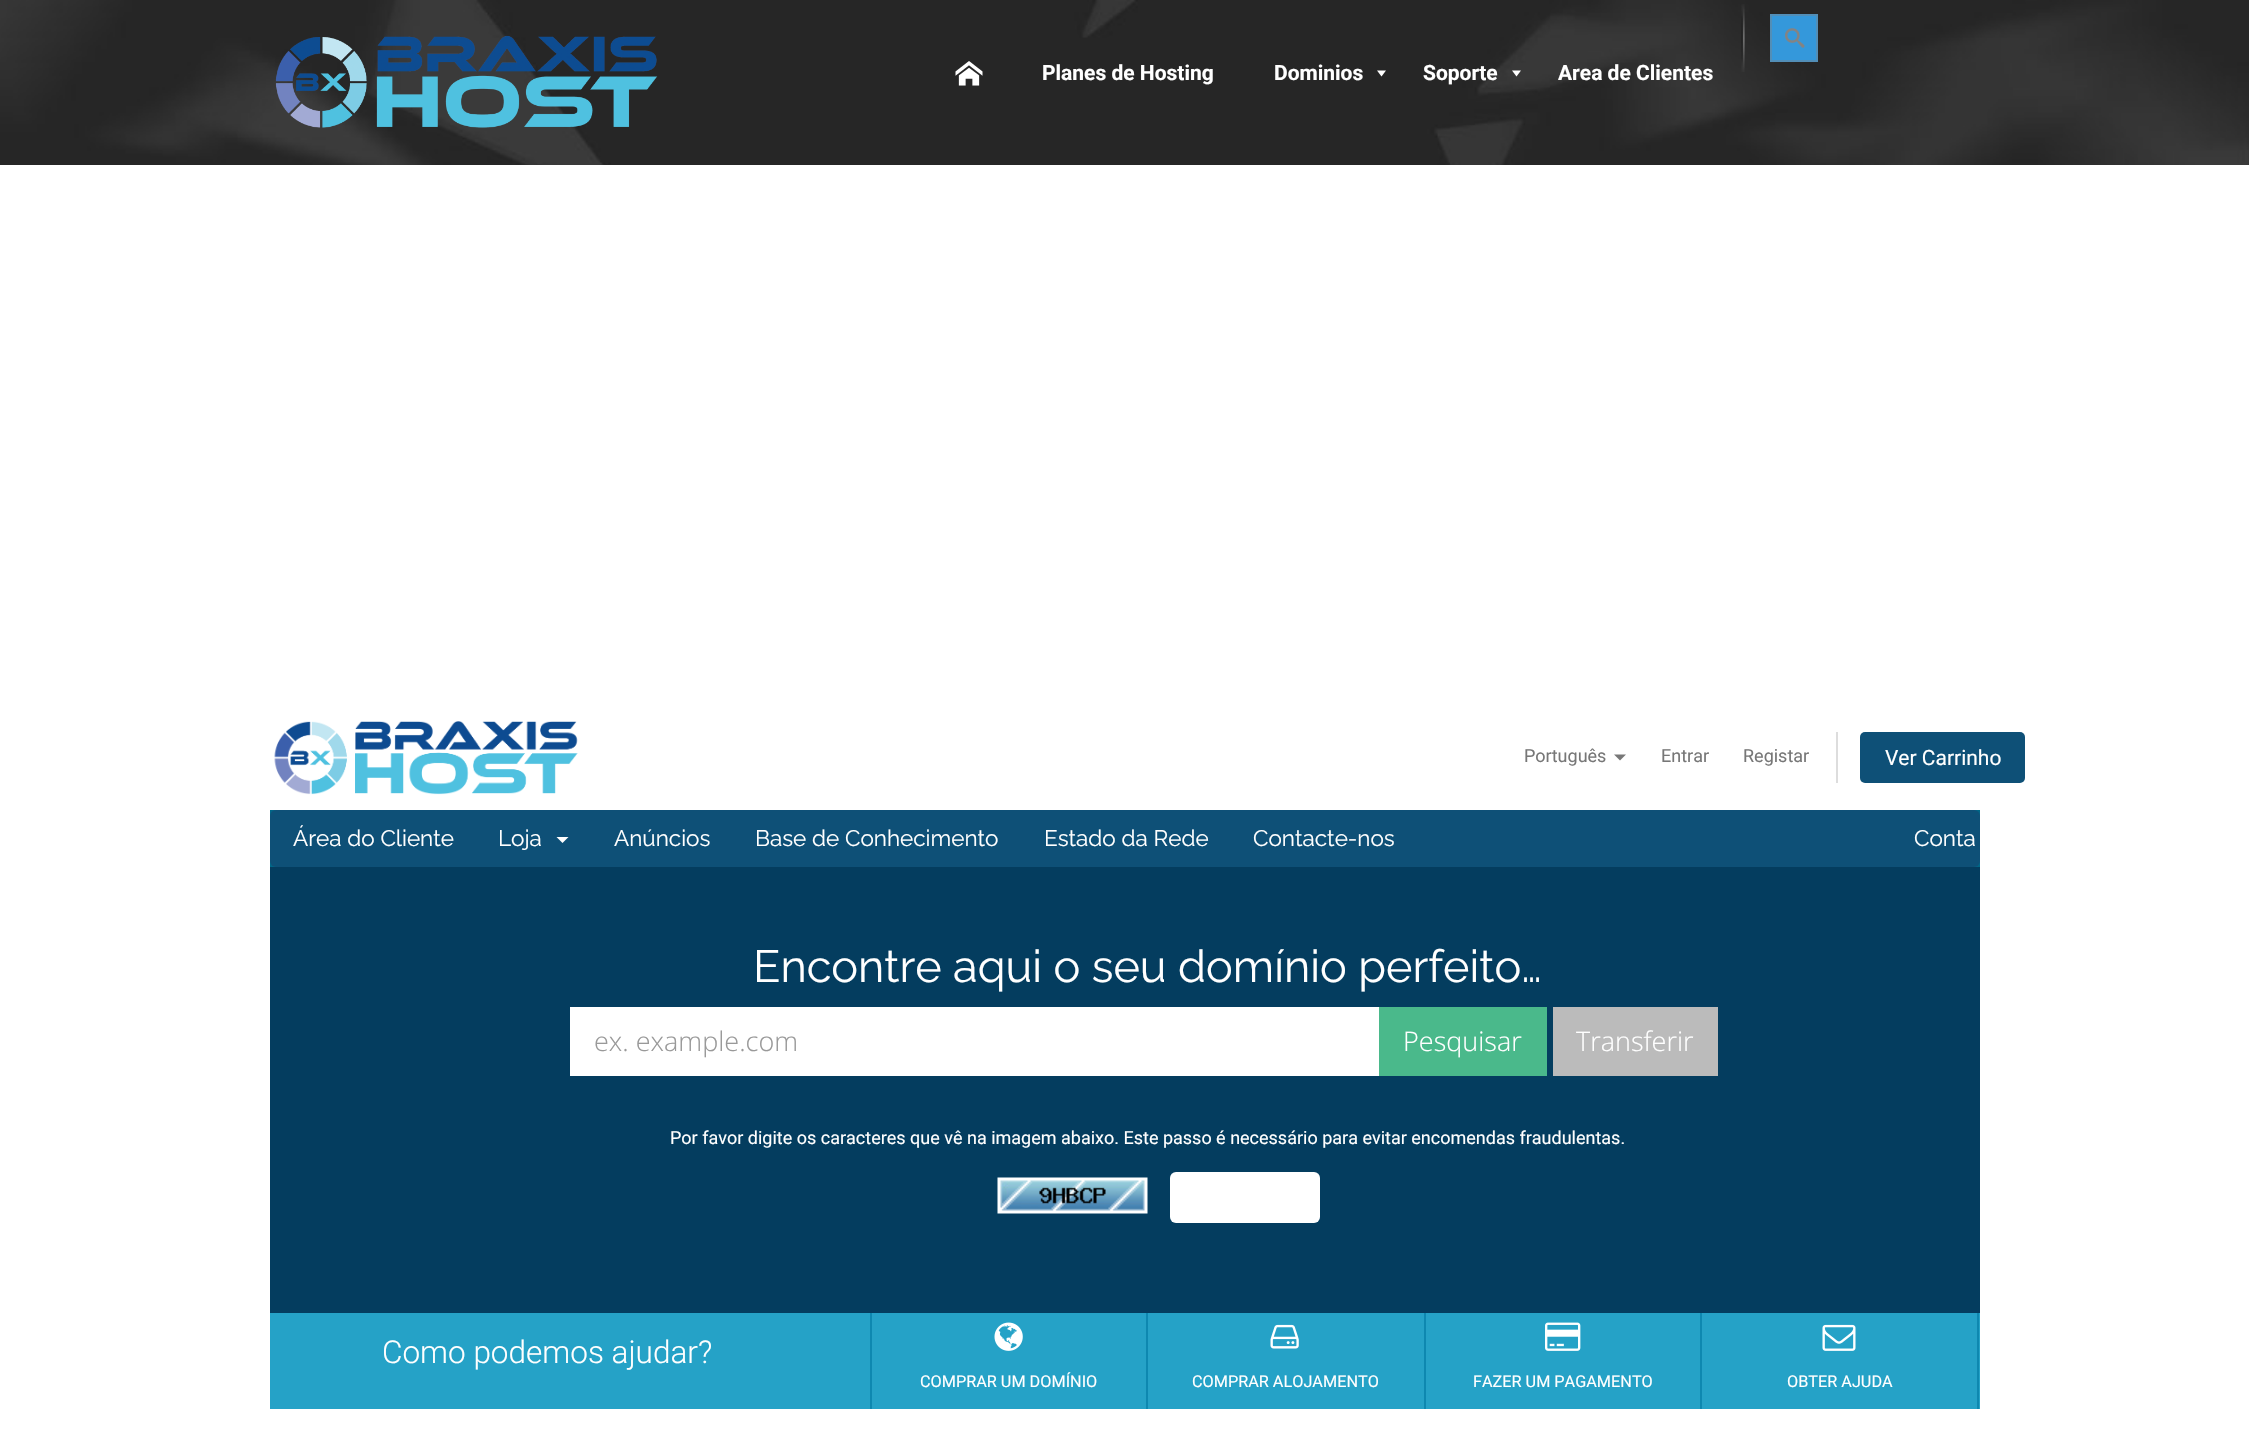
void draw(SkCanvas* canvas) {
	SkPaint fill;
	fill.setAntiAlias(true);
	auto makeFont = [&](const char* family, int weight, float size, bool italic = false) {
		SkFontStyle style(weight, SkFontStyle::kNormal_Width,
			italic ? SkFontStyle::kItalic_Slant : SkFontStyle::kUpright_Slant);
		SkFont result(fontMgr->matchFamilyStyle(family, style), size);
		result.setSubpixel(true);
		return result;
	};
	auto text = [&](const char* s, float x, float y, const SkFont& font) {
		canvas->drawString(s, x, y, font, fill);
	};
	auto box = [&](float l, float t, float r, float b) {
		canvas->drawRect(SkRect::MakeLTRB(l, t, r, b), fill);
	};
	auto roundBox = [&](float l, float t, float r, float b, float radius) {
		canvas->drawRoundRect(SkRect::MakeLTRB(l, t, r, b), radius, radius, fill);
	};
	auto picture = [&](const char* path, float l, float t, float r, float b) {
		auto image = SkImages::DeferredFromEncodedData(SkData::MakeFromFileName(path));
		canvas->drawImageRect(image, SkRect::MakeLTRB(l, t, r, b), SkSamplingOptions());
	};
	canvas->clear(0xFFFFFFFF);
	picture("image0.png", 0, 0, 2249, 165);
	picture("image1.png", 275, 35, 658, 128);
	picture("image2.png", 955, 61, 983, 86);
	fill.setColor(0xFFFFFFFF);
	canvas->drawPath(SkPathBuilder().moveTo(1377, 70.5f).lineTo(1386, 70.5f).lineTo(1381.5f, 76.5f).close().detach(), fill);
	canvas->drawPath(SkPathBuilder().moveTo(1512, 70.5f).lineTo(1521, 70.5f).lineTo(1516.5f, 76.5f).close().detach(), fill);
	picture("image3.png", 1741, 4, 1745, 72);
	fill.setColor(0xFF3498DB);
	canvas->drawRect(SkRect::MakeLTRB(1771, 15, 1817, 61), fill);
	fill.setStyle(SkPaint::kStroke_Style);
	fill.setStrokeWidth(2);
	fill.setColor(0xFF528EB7);
	canvas->drawRect(SkRect::MakeLTRB(1771, 15, 1817, 61), fill);
	picture("image4.png", 1785, 28, 1805, 48);
	picture("image5.png", 274, 721, 578, 795);
	fill.setStyle(SkPaint::kFill_Style);
	fill.setColor(0xFF777777);
	canvas->drawPath(SkPathBuilder().moveTo(1614, 754.5f).lineTo(1626, 754.5f).lineTo(1620, 760.5f).close().detach(), fill);
	fill.setColor(0xFFDDDDDD);
	box(1836, 732, 1838, 783);
	fill.setColor(0xFF0E5077);
	roundBox(1860, 732, 2025, 783, 5);
	fill.setColor(0xFF006687);
	box(270, 810, 1980, 867);
	fill.setColor(0xFF0E5077);
	roundBox(270, 810, 1980, 867, 6);
	fill.setColor(0xFFFFFFFF);
	canvas->drawPath(SkPathBuilder().moveTo(556.5f, 837).lineTo(568.5f, 837).lineTo(562.5f, 843).close().detach(), fill);
	fill.setColor(0xFF043D5F);
	box(270, 867, 1980, 1313);
	fill.setColor(0xFFFFFFFF);
	box(570, 1007, 1379, 1076);
	fill.setColor(0xFF4AB98B);
	box(1379, 1007, 1547, 1076);
	fill.setColor(0xFFBBBBBB);
	box(1553, 1007, 1718, 1076);
	picture("image6.png", 997, 1177, 1148, 1214);
	fill.setColor(0xFFFFFFFF);
	roundBox(1170, 1172, 1320, 1223, 6);
	fill.setColor(0xFF25A2C7);
	box(270, 1313, 1980, 1409);
	fill.setColor(0xFF0E88B0);
	box(1146, 1313, 1148, 1409);
	box(870, 1313, 872, 1409);
	picture("image7.png", 994, 1322, 1023, 1351);
	box(1424, 1313, 1426, 1409);
	picture("image8.png", 1270, 1324, 1299, 1349);
	box(1700, 1313, 1702, 1409);
	picture("image9.png", 1545, 1322, 1581, 1351);
	box(1977, 1313, 1979, 1409);
	picture("image10.png", 1822, 1324, 1856, 1351);
	auto font1 = makeFont("Roboto", 700, 21);
	fill.setColor(0xFFFFFFFF);
	text("Planes de Hosting", 1042, 80, font1);
	text("Dominios", 1274, 80, font1);
	text("Soporte", 1423, 80, font1);
	text("Area de Clientes", 1558, 80, font1);
	auto font2 = makeFont("Roboto", 400, 18);
	fill.setColor(0xFF777777);
	text("Português", 1524, 762, font2);
	text("Entrar", 1661, 762, font2);
	text("Registar", 1743, 762, font2);
	auto font3 = makeFont("Roboto", 400, 21);
	fill.setColor(0xFFFFFFFF);
	text("Ver Carrinho", 1885, 765, font3);
	auto font4 = makeFont("Raleway", 400, 22.5f);
	text("Área do Cliente", 293, 846, font4);
	text("Loja", 498, 846, font4);
	text("Anúncios", 614, 846, font4);
	text("Base de Conhecimento", 755, 846, font4);
	text("Estado da Rede", 1044, 846, font4);
	text("Contacte-nos", 1253, 846, font4);
	text("Conta", 1914, 846, font4);
	auto font5 = makeFont("Raleway", 400, 45);
	text("Encontre aqui o seu domínio perfeito…", 753, 982, font5);
	auto font6 = makeFont("Open Sans", 300, 27);
	fill.setColor(0xFF999999);
	text("ex. example.com", 594, 1051, font6);
	fill.setColor(0xFFFFFFFF);
	text("Pesquisar", 1403, 1051, font6);
	text("Transferir", 1576, 1051, font6);
	text("Por favor digite os caracteres que vê na imagem abaixo. Este passo é necessário para evitar encomendas fraudulentas.", 670, 1144, font2);
	auto font7 = makeFont("Roboto", 300, 31.5f);
	text("Como podemos ajudar?", 382, 1363, font7);
	auto font8 = makeFont("Roboto", 400, 16.25f);
	text("COMPRAR UM DOMÍNIO", 920, 1387, font8);
	text("COMPRAR ALOJAMENTO", 1192, 1387, font8);
	text("FAZER UM PAGAMENTO", 1473, 1387, font8);
	text("OBTER AJUDA", 1787, 1387, font8);
}
